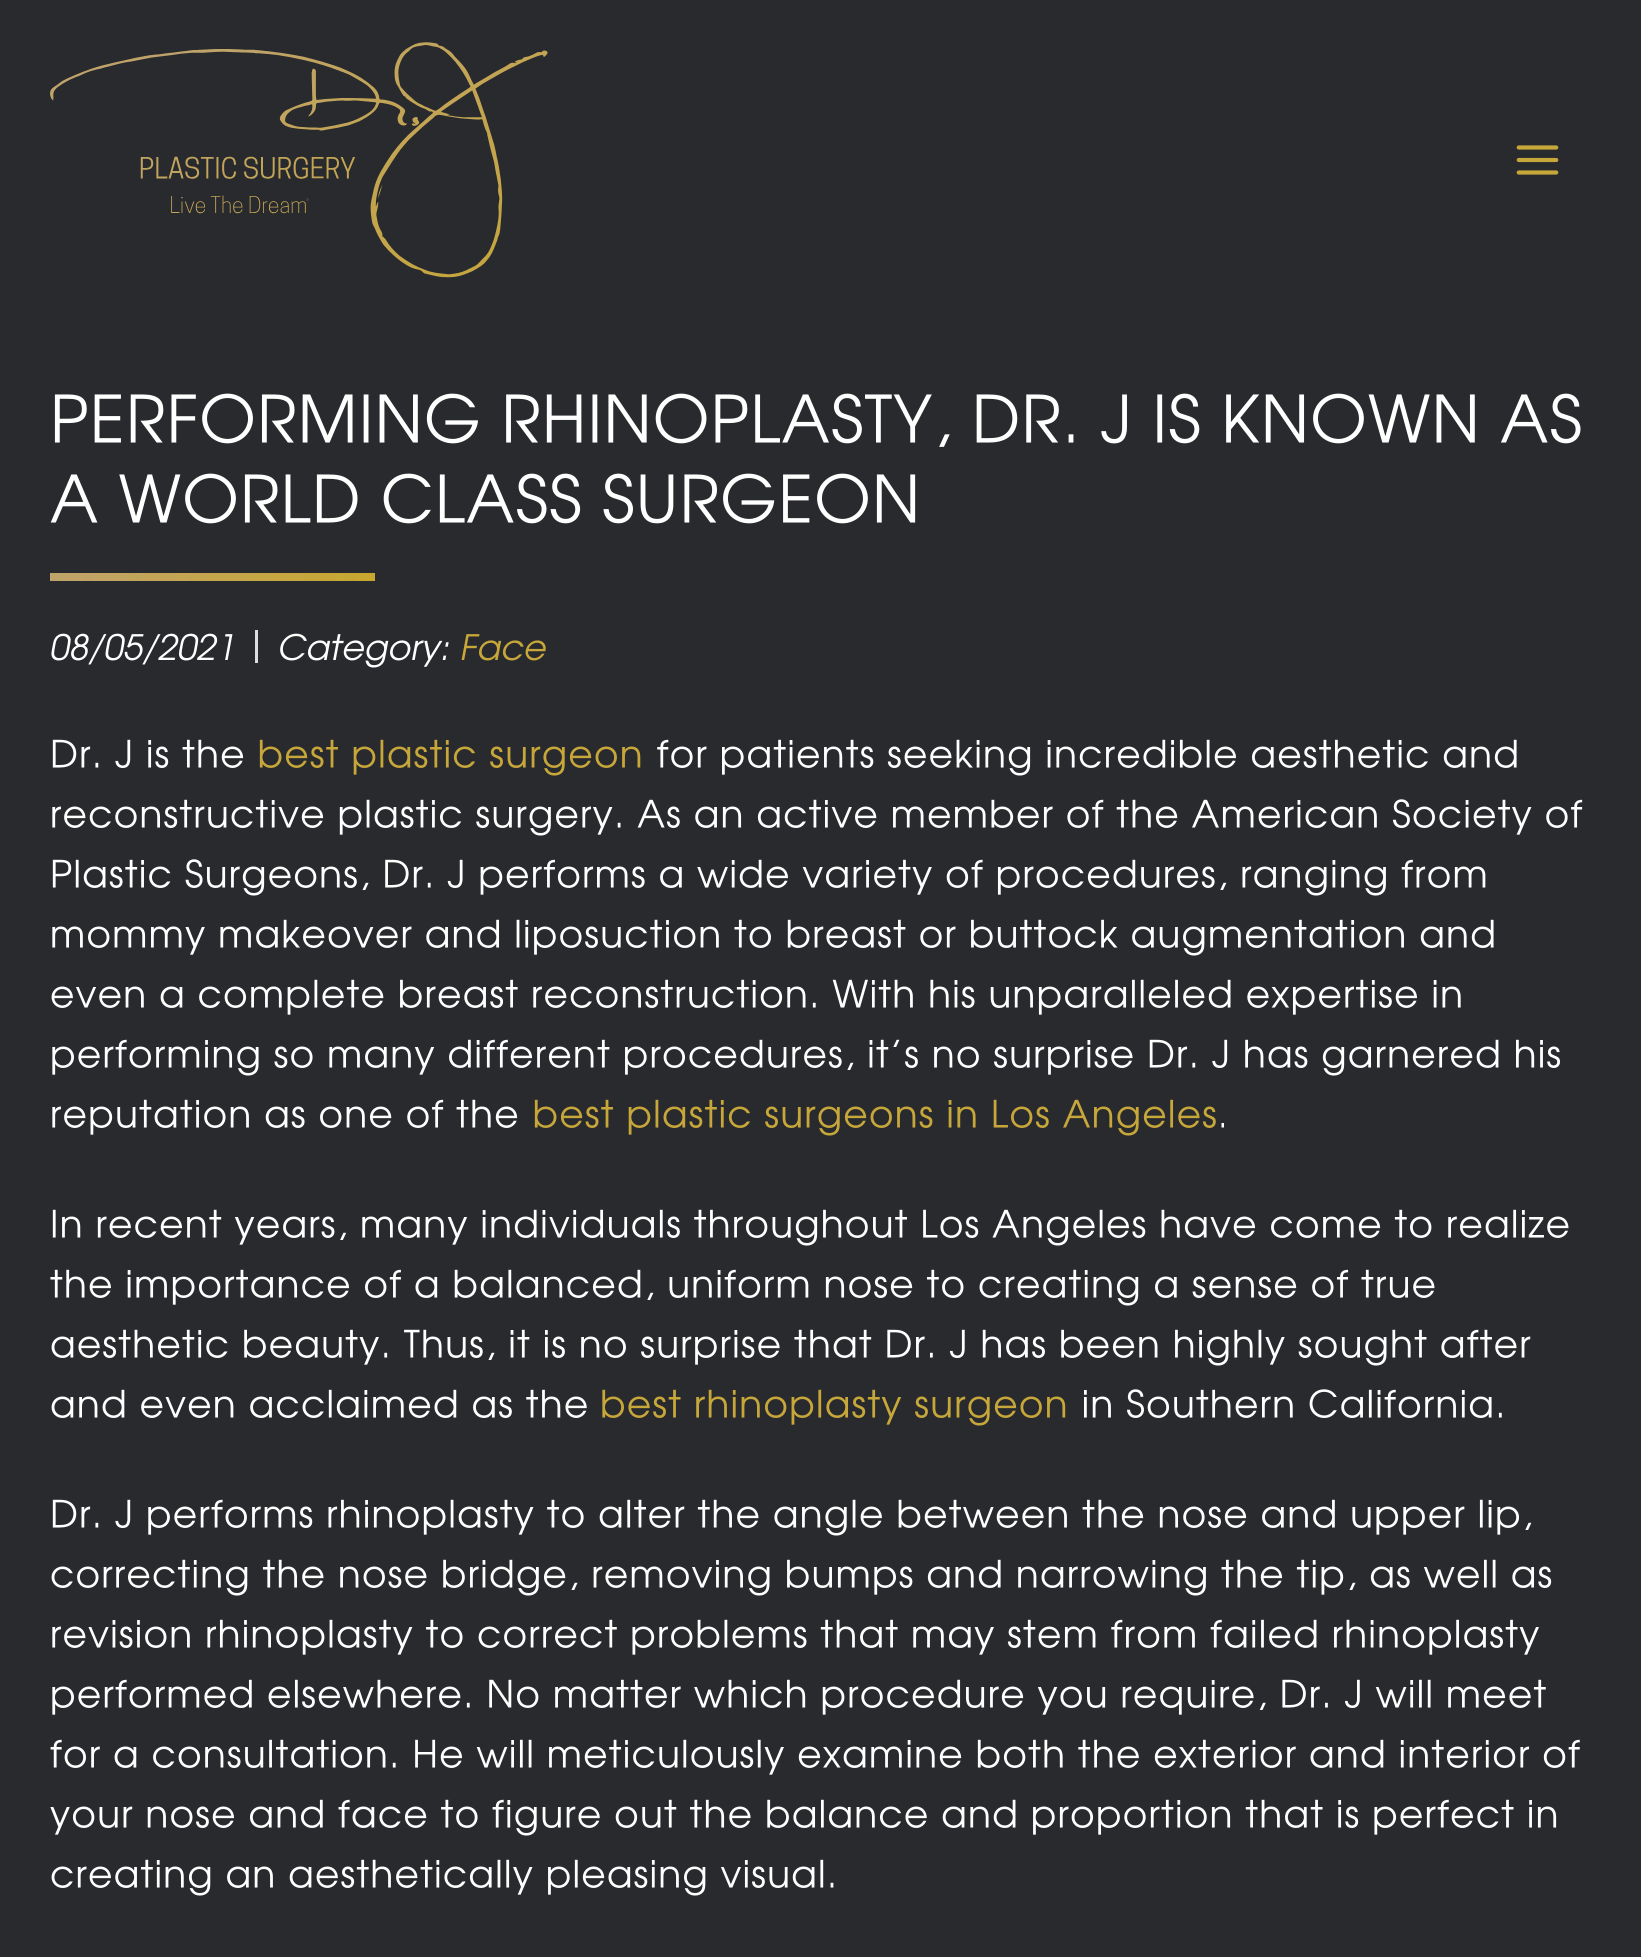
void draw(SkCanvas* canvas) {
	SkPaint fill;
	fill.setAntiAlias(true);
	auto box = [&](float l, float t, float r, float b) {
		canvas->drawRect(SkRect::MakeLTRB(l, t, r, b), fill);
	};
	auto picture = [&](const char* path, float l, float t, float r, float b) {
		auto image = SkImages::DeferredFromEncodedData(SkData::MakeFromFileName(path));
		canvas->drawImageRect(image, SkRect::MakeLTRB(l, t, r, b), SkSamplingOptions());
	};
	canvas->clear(0xFF282A2D);
	picture("image0.png", 50, 42, 548, 278);
	picture("image1.png", 1516, 145, 1559, 175);
	picture("image2.png", 54, 393, 1581, 447);
	picture("image3.png", 50, 473, 916, 524);
	{
		const SkColor colors[] = {0xFFBFA36B, 0xFFC8A72F};
		const float stops[] = {0, 1};
		const SkPoint ends[] = {{50, 576}, {375, 576}};
		fill.setShader(SkGradientShader::MakeLinear(ends, colors, stops, 2, SkTileMode::kClamp));
		fill.setAlpha(255);
	}
	box(50, 573, 375, 581);
	picture("image4.png", 51, 633, 233, 665);
	fill.setShader(nullptr);
	fill.setColor(0xFFDDDDDD);
	box(255, 630, 258, 663);
	picture("image5.png", 280, 633, 449, 668);
	picture("image6.png", 461, 634, 546, 661);
	picture("image7.png", 52, 739, 244, 768);
	picture("image8.png", 259, 739, 641, 776);
	picture("image9.png", 657, 739, 1517, 776);
	picture("image10.png", 52, 799, 1583, 836);
	picture("image11.png", 52, 859, 1486, 896);
	picture("image12.png", 52, 919, 1494, 956);
	picture("image13.png", 51, 979, 1461, 1015);
	picture("image14.png", 52, 1039, 1561, 1076);
	picture("image15.png", 52, 1099, 518, 1135);
	picture("image16.png", 534, 1099, 1216, 1136);
	fill.setColor(0xFFFFFFFF);
	canvas->drawPath(SkPathBuilder().moveTo(1224, 1127.5f).lineTo(1224, 1123).lineTo(1221.5f, 1123).lineTo(1221.5f, 1127.5f).close().detach(), fill);
	picture("image17.png", 52, 1209, 1569, 1246);
	picture("image18.png", 50, 1269, 1435, 1306);
	picture("image19.png", 51, 1329, 1531, 1366);
	picture("image20.png", 51, 1389, 587, 1418);
	picture("image21.png", 602, 1389, 1066, 1426);
	picture("image22.png", 1084, 1389, 1502, 1418);
	picture("image23.png", 52, 1499, 1532, 1536);
	picture("image24.png", 51, 1559, 1552, 1596);
	picture("image25.png", 52, 1619, 1539, 1655);
	picture("image26.png", 52, 1679, 1546, 1715);
	picture("image27.png", 50, 1739, 1580, 1775);
	picture("image28.png", 50, 1799, 1557, 1836);
	picture("image29.png", 51, 1859, 834, 1896);
}
